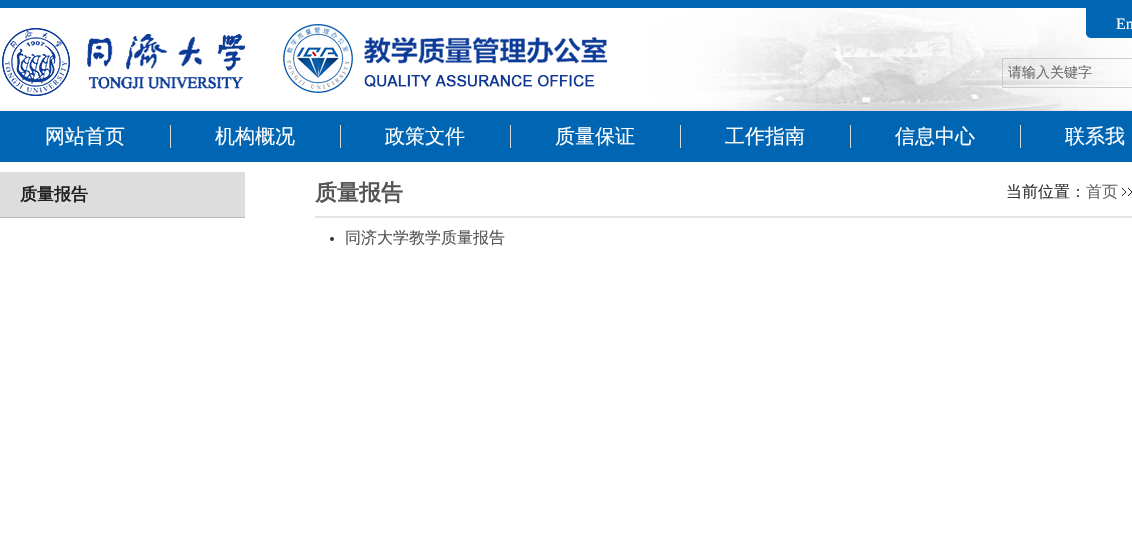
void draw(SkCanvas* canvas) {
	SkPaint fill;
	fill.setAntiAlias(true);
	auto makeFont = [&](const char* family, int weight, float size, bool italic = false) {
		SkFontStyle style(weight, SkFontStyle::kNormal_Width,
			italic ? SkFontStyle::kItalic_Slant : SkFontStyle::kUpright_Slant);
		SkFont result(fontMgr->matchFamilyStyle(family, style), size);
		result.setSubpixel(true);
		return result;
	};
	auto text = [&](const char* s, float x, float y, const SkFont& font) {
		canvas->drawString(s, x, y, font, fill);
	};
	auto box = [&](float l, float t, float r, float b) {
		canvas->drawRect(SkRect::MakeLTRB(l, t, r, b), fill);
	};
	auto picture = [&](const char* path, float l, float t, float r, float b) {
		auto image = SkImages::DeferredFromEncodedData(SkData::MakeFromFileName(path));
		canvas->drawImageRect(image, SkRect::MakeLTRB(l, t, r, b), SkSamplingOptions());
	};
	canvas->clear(0xFFFFFFFF);
	fill.setColor(0xFF0066B3);
	box(0, 0, 1132, 8);
	picture("image0.png", 0, 8, 1132, 111);
	picture("image1.png", 2, 24, 607, 96);
	fill.setStyle(SkPaint::kStroke_Style);
	fill.setStrokeWidth(1);
	fill.setColor(0xFFCCCCCC);
	canvas->drawRect(SkRect::MakeLTRB(1002.5f, 58.5f, 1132.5f, 87.5f), fill);
	picture("image2.png", 1086, 8, 1132, 38);
	fill.setStyle(SkPaint::kFill_Style);
	fill.setColor(0xFF0066B3);
	box(0, 111, 1132, 162);
	fill.setColor(0xFFD9DADB);
	box(170, 125, 171, 148);
	box(340, 125, 341, 148);
	box(510, 125, 511, 148);
	box(680, 125, 681, 148);
	box(850, 125, 851, 148);
	box(1020, 125, 1021, 148);
	fill.setColor(0xFFDDDDDD);
	box(0, 172, 245, 217);
	fill.setColor(0xFFBBBBBB);
	box(0, 217, 245, 218);
	fill.setColor(0xFFE5E5E5);
	box(315, 216, 1132, 218);
	picture("image3.png", 1121, 187, 1132, 197);
	fill.setColor(0xFF333333);
	canvas->drawCircle(332, 239, 2, fill);
	auto font1 = makeFont("WenQuanYi Zen Hei", 500, 14);
	fill.setColor(0xFF6D6C6C);
	text("请输入关键字", 1008, 77, font1);
	auto font2 = makeFont("Liberation Serif", 400, 16);
	fill.setColor(0xFFFFFFFF);
	text("En", 1116, 29, font2);
	auto font3 = makeFont("WenQuanYi Zen Hei", 500, 20);
	text("网站首页", 45, 143, font3);
	text("机构概况", 215, 143, font3);
	text("政策文件", 385, 143, font3);
	text("质量保证", 555, 143, font3);
	text("工作指南", 725, 143, font3);
	text("信息中心", 895, 143, font3);
	text("联系我", 1065, 143, font3);
	auto font4 = makeFont("WenQuanYi Zen Hei", 700, 17);
	fill.setColor(0xFF222222);
	text("质量报告", 20, 200, font4);
	auto font5 = makeFont("WenQuanYi Zen Hei", 700, 22);
	fill.setColor(0xFF555555);
	text("质量报告", 315, 200, font5);
	auto font6 = makeFont("WenQuanYi Zen Hei", 500, 16);
	fill.setColor(0xFF333333);
	text("当前位置：", 1006, 197, font6);
	fill.setColor(0xFF66696B);
	text("首页", 1086, 197, font6);
	fill.setColor(0xFF555555);
	text("同济大学教学质量报告", 345, 243, font6);
}
